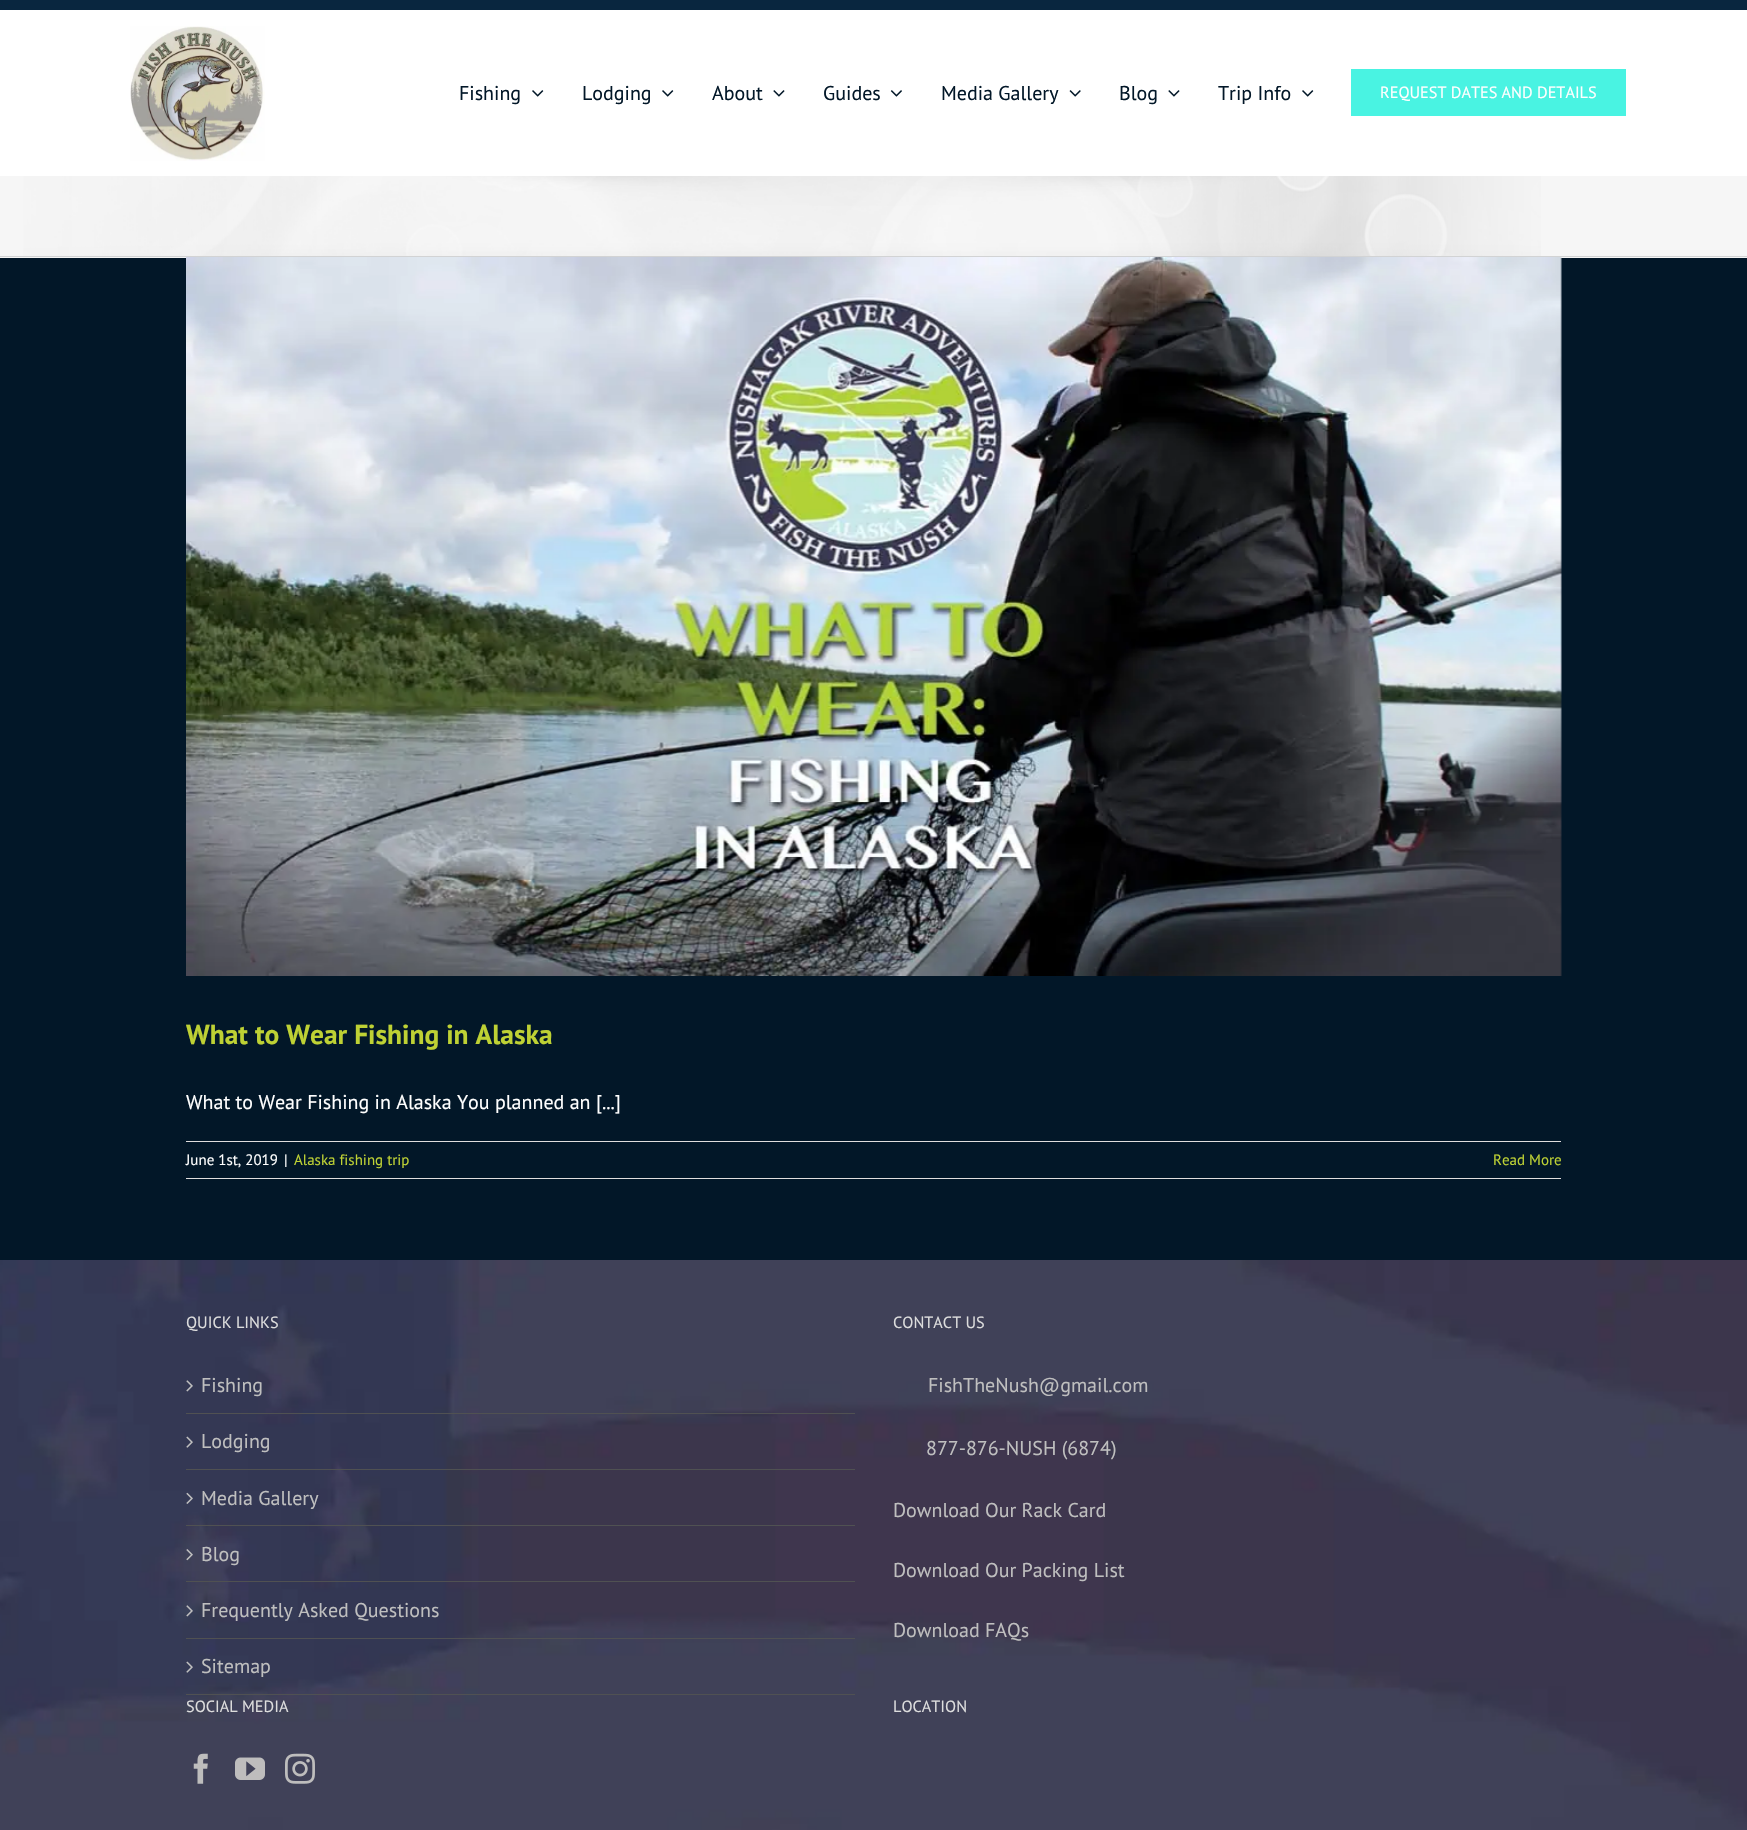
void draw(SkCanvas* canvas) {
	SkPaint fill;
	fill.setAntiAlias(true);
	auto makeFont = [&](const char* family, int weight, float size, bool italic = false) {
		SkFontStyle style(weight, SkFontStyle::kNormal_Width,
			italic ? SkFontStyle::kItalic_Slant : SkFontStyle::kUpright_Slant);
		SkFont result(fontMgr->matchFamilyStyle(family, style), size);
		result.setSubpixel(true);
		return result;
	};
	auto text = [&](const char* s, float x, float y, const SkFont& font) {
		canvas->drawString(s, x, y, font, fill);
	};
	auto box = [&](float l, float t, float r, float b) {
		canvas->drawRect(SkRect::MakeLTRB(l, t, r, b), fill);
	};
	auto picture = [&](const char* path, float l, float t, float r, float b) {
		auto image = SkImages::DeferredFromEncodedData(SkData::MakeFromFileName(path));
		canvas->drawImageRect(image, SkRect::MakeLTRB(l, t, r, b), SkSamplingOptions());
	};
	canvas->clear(0xFF021728);
	fill.setColor(0xFF09263F);
	box(0, 0, 1747, 10);
	fill.setColor(0xFFFFFFFF);
	box(0, 10, 1747, 176);
	picture("image0.png", 130, 26, 265, 161);
	picture("image1.png", 532, 90, 544, 97);
	picture("image1.png", 662, 90, 674, 97);
	picture("image2.png", 773, 90, 785, 97);
	picture("image3.png", 890, 90, 902, 97);
	picture("image4.png", 1069, 90, 1081, 97);
	picture("image2.png", 1168, 90, 1180, 97);
	picture("image1.png", 1302, 90, 1314, 97);
	fill.setColor(0xFF49F3E2);
	box(1351, 69, 1626, 116);
	fill.setColor(0xFFF6F6F6);
	box(0, 176, 1747, 258);
	picture("image5.png", 23, 176, 1541, 258);
	fill.setColor(0xFFD2D3D4);
	box(0, 256, 1747, 257);
	picture("image6.png", 186, 257, 1562, 976);
	fill.setColor(0xFFE0DEDE);
	box(186, 1141, 1561, 1142);
	box(186, 1178, 1561, 1179);
	picture("image7.png", 0, 1260, 1747, 1830);
	fill.setColor(0xFF505152);
	box(186, 1413, 855, 1414);
	picture("image8.png", 186, 1380, 193, 1392);
	box(186, 1469, 855, 1470);
	picture("image9.png", 186, 1436, 193, 1448);
	box(186, 1525, 855, 1526);
	picture("image10.png", 186, 1492, 193, 1504);
	box(186, 1581, 855, 1582);
	picture("image11.png", 186, 1549, 193, 1561);
	box(186, 1638, 855, 1639);
	picture("image12.png", 186, 1605, 193, 1617);
	box(186, 1694, 855, 1695);
	picture("image13.png", 186, 1661, 193, 1673);
	picture("image14.png", 193, 1753, 208, 1784);
	picture("image15.png", 235, 1757, 265, 1780);
	picture("image16.png", 285, 1753, 315, 1784);
	auto font1 = makeFont("PT Sans", 400, 20);
	fill.setColor(0xFF021728);
	text("Fishing", 459, 100, font1);
	text("Lodging", 582, 100, font1);
	text("About", 712, 100, font1);
	text("Guides", 823, 100, font1);
	text("Media Gallery", 941, 100, font1);
	text("Blog", 1119, 100, font1);
	text("Trip Info", 1218, 100, font1);
	auto font2 = makeFont("PT Sans", 400, 16.25f);
	fill.setColor(0xFFFFFFFF);
	text("REQUEST DATES AND DETAILS", 1380, 98, font2);
	auto font3 = makeFont("PT Sans", 700, 27.5f);
	fill.setColor(0xFFBED134);
	text("What to Wear Fishing in Alaska", 186, 1044, font3);
	fill.setColor(0xFFFFFFFF);
	text("What to Wear Fishing in Alaska You planned an [...]", 186, 1109, font1);
	auto font4 = makeFont("PT Sans", 400, 15);
	text("June 1st, 2019", 186, 1165, font4);
	text("|", 284, 1165, font4);
	fill.setColor(0xFFBED134);
	text("Alaska fishing trip", 294, 1165, font4);
	text("Read More", 1493, 1165, font4);
	fill.setColor(0xFFDDDDDD);
	text("QUICK LINKS", 186, 1328, font2);
	fill.setColor(0xFFBFBFBF);
	text("Fishing", 201, 1392, font1);
	text("Lodging", 201, 1448, font1);
	text("Media Gallery", 201, 1505, font1);
	text("Blog", 201, 1561, font1);
	text("Frequently Asked Questions", 201, 1617, font1);
	text("Sitemap", 201, 1673, font1);
	fill.setColor(0xFFDDDDDD);
	text("CONTACT US", 893, 1328, font2);
	fill.setColor(0xFFBFBFBF);
	text("FishTheNush@gmail.com", 928, 1392, font1);
	text("877-876-NUSH (6874)", 926, 1455, font1);
	text("Download Our Rack Card", 893, 1517, font1);
	text("Download Our Packing List", 893, 1577, font1);
	text("Download FAQs", 893, 1637, font1);
	fill.setColor(0xFFDDDDDD);
	text("SOCIAL MEDIA", 186, 1712, font2);
	text("LOCATION", 893, 1712, font2);
}
